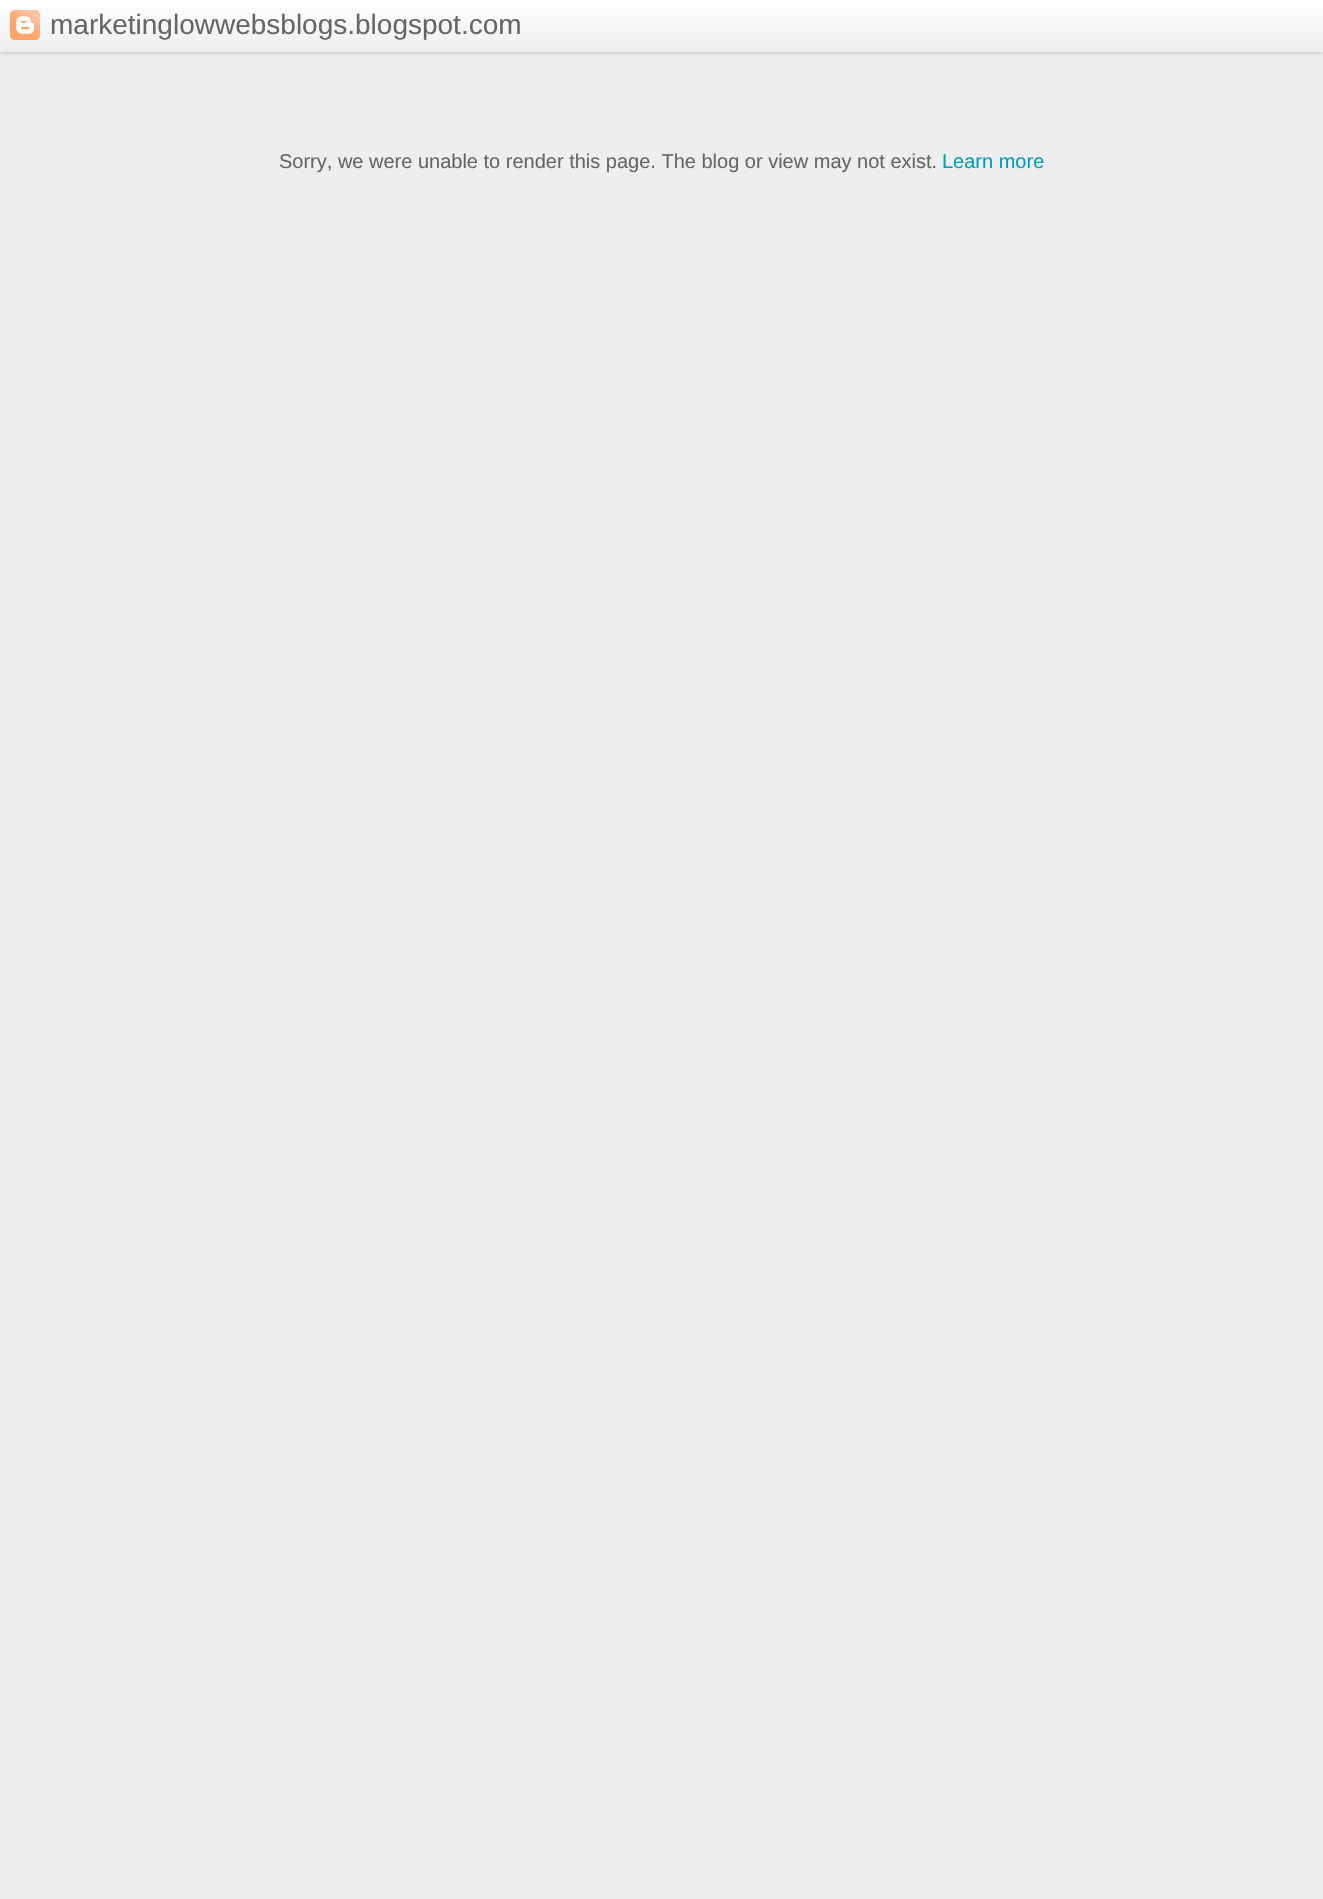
void draw(SkCanvas* canvas) {
	SkPaint fill;
	fill.setAntiAlias(true);
	auto makeFont = [&](const char* family, int weight, float size, bool italic = false) {
		SkFontStyle style(weight, SkFontStyle::kNormal_Width,
			italic ? SkFontStyle::kItalic_Slant : SkFontStyle::kUpright_Slant);
		SkFont result(fontMgr->matchFamilyStyle(family, style), size);
		result.setSubpixel(true);
		return result;
	};
	auto text = [&](const char* s, float x, float y, const SkFont& font) {
		canvas->drawString(s, x, y, font, fill);
	};
	auto box = [&](float l, float t, float r, float b) {
		canvas->drawRect(SkRect::MakeLTRB(l, t, r, b), fill);
	};
	auto picture = [&](const char* path, float l, float t, float r, float b) {
		auto image = SkImages::DeferredFromEncodedData(SkData::MakeFromFileName(path));
		canvas->drawImageRect(image, SkRect::MakeLTRB(l, t, r, b), SkSamplingOptions());
	};
	canvas->clear(0xFFEEEEEE);
	fill.setColor(0xFFAAAAAA);
	fill.setMaskFilter(SkMaskFilter::MakeBlur(kNormal_SkBlurStyle, 2.5f));
	canvas->drawRect(SkRect::MakeLTRB(0, 0, 1323, 52), fill);
	fill.setMaskFilter(nullptr);
	{
		const SkColor colors[] = {0xFFFFFFFF, 0xFFEEEEEE};
		const float stops[] = {0, 1};
		const SkPoint ends[] = {{0, 0}, {0, 52}};
		fill.setShader(SkGradientShader::MakeLinear(ends, colors, stops, 2, SkTileMode::kClamp));
		fill.setAlpha(255);
	}
	box(0, 0, 1323, 52);
	picture("image0.png", 10, 10, 40, 40);
	auto font1 = makeFont("Liberation Sans", 400, 28);
	fill.setShader(nullptr);
	fill.setColor(0xFF666666);
	text("marketinglowwebsblogs.blogspot.com", 50, 34, font1);
	auto font2 = makeFont("Liberation Sans", 400, 20);
	text("Sorry, we were unable to render this page. The blog or view may not exist.", 279, 168, font2);
	fill.setColor(0xFF009EB8);
	text("Learn more", 942, 168, font2);
}
